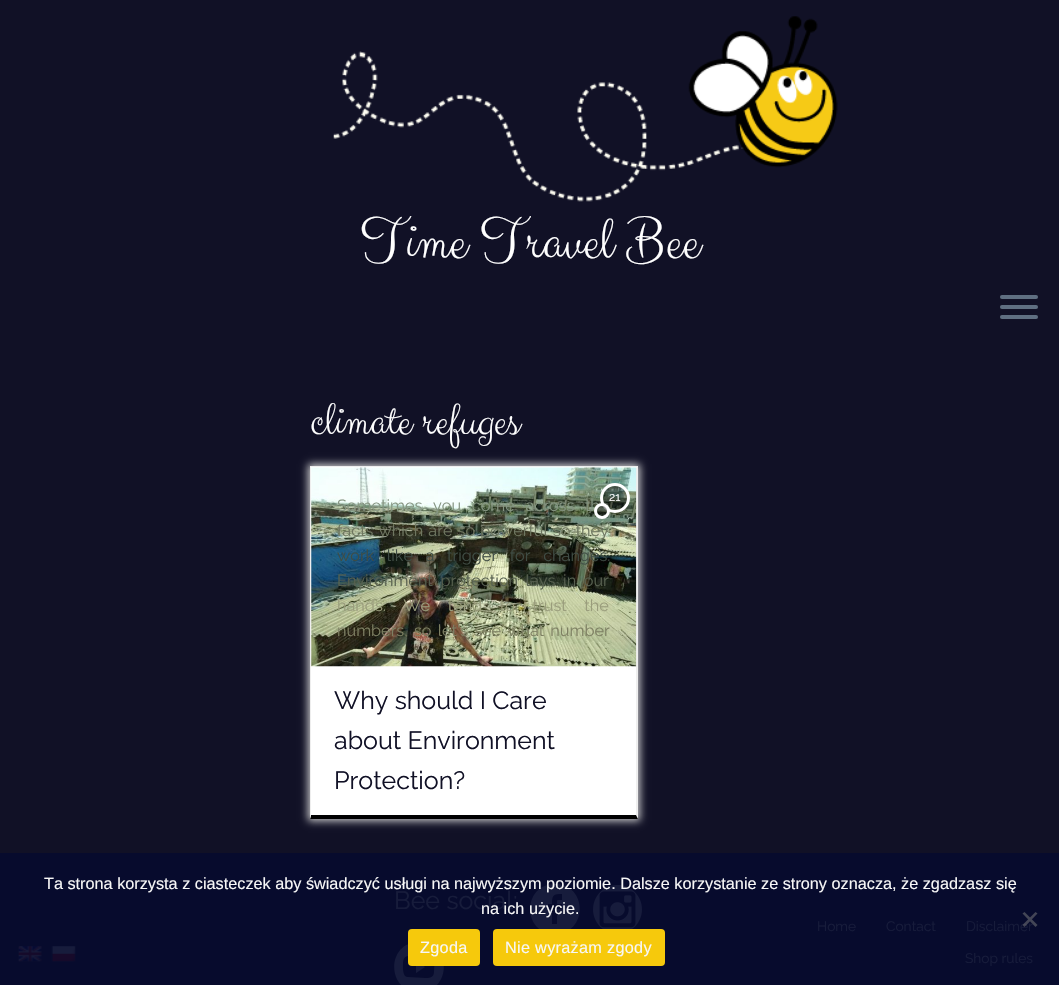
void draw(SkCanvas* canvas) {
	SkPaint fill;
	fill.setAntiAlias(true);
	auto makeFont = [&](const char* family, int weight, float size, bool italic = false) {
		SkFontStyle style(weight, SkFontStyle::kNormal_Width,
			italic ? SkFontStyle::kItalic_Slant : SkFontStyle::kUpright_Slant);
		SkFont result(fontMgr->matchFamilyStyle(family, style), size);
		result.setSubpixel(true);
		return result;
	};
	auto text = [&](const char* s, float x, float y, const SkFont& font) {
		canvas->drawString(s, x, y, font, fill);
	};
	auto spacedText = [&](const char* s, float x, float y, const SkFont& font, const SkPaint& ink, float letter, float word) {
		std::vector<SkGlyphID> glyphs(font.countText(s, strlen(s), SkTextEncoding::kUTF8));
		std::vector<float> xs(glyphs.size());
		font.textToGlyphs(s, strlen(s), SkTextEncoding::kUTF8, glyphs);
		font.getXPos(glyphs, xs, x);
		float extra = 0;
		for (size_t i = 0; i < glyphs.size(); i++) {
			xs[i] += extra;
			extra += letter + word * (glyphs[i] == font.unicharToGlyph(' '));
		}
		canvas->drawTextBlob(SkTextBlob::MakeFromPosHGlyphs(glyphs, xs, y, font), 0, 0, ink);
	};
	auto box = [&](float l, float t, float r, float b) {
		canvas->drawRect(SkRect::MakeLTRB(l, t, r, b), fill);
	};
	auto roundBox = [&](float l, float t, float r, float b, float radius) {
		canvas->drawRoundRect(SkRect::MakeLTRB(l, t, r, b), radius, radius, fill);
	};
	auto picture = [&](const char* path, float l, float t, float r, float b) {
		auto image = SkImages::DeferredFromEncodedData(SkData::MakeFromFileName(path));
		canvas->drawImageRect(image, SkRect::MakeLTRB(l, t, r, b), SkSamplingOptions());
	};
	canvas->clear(0xFF111126);
	fill.setColor(0xFF070B2D);
	box(0, 853, 1059, 985);
	picture("image0.png", 333, 16, 838, 202);
	fill.setColor(0xFF5F6F81);
	roundBox(1000, 295, 1038, 299, 2);
	roundBox(1000, 305, 1038, 309, 2);
	roundBox(1000, 315, 1038, 319, 2);
	fill.setColor(0xFFFFFFFF);
	box(310, 467, 638, 819);
	canvas->save();
	canvas->clipPath(SkPathBuilder(SkPathFillType::kEvenOdd).moveTo(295, 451).lineTo(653, 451).lineTo(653, 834).lineTo(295, 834).close().moveTo(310, 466).lineTo(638, 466).lineTo(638, 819).lineTo(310, 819).close().detach(), true);
	fill.setColor(0xFFCCCCCC);
	fill.setMaskFilter(SkMaskFilter::MakeBlur(kNormal_SkBlurStyle, 4));
	canvas->drawRect(SkRect::MakeLTRB(308, 464, 640, 821), fill);
	fill.setMaskFilter(nullptr);
	canvas->restore();
	fill.setColor(0xFFEEEEEE);
	box(310, 466, 638, 467);
	canvas->drawPath(SkPathBuilder().moveTo(638, 466).lineTo(638, 819).lineTo(636, 815).lineTo(636, 468).close().detach(), fill);
	fill.setColor(0xFF000000);
	canvas->drawPath(SkPathBuilder().moveTo(638, 819).lineTo(310, 819).lineTo(311, 815).lineTo(636, 815).close().detach(), fill);
	fill.setColor(0xFFEEEEEE);
	canvas->drawPath(SkPathBuilder().moveTo(310, 819).lineTo(310, 466).lineTo(311, 468).lineTo(311, 815).close().detach(), fill);
	picture("image1.png", 311, 467, 637, 667);
	fill.setColor(0xFF171C3C);
	canvas->drawPath(SkPathBuilder().moveTo(555, 884).cubicTo(522, 884, 522, 934, 555, 934).cubicTo(588, 934, 588, 884, 555, 884).close().moveTo(561, 909).lineTo(557, 909).lineTo(557, 924).lineTo(552, 924).lineTo(552, 909).lineTo(548, 909).lineTo(548, 904).lineTo(552, 904).cubicTo(552, 895, 553, 894, 562, 894).lineTo(562, 900).cubicTo(557, 900, 557, 899, 557, 904).lineTo(562, 904).close().detach(), fill);
	picture("image2.png", 593, 885, 642, 929);
	canvas->drawPath(SkPathBuilder().moveTo(419, 942).cubicTo(386, 942, 386, 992, 419, 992).cubicTo(452, 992, 452, 942, 419, 942).close().moveTo(434, 972).cubicTo(434, 978, 429, 978, 425, 978).lineTo(407, 977).cubicTo(402, 976, 403, 966, 403, 962).cubicTo(404, 956, 406, 956, 412, 956).lineTo(431, 956).cubicTo(436, 958, 434, 969, 434, 972).close().moveTo(416, 973).lineTo(425, 967).lineTo(416, 961).close().detach(), fill);
	picture("image3.png", 18, 946, 42, 962);
	picture("image4.png", 51, 946, 76, 962);
	fill.setColor(0xFFF6C90C);
	roundBox(408, 929, 480, 966, 4);
	roundBox(493, 929, 665, 966, 4);
	auto font1 = makeFont("Clicker Script", 400, 60);
	fill.setColor(0xFFFFFFFF);
	text("Time Travel Bee", 360, 259, font1);
	auto font2 = makeFont("Clicker Script", 400, 47.5f);
	text("climate refuges", 310, 435, font2);
	auto font3 = makeFont("Raleway", 100, 16.25f);
	fill.setColor(0xFF859582);
	spacedText("Sometimes you come across the", 337, 511, font3, fill, 0, 6.5f);
	fill.setColor(0x66000000);
	canvas->drawCircle(615, 498, 13.5f, fill);
	fill.setStyle(SkPaint::kStroke_Style);
	fill.setStrokeWidth(3);
	fill.setColor(0xFFFFFFFF);
	canvas->drawCircle(615, 498, 13.5f, fill);
	fill.setStyle(SkPaint::kFill_Style);
	fill.setColor(0x66000000);
	canvas->drawCircle(602, 511, 6.5f, fill);
	fill.setStyle(SkPaint::kStroke_Style);
	fill.setColor(0xFFFFFFFF);
	canvas->drawCircle(602, 511, 6.5f, fill);
	auto font4 = makeFont("Raleway", 100, 12);
	fill.setStyle(SkPaint::kFill_Style);
	text("21", 609, 501, font4);
	fill.setColor(0xFF6E7660);
	spacedText("facts which are so powerful so they", 337, 536, font3, fill, 0, 1);
	fill.setColor(0xFF3F4C44);
	spacedText("work like a trigger for changes.", 337, 561, font3, fill, 0, 8.5f);
	fill.setColor(0xFF57604F);
	spacedText("Environment protection lays in our", 337, 586, font3, fill, 0, 3.5f);
	fill.setColor(0xFF9A9D7C);
	spacedText("hands. We tend to trust the", 337, 611, font3, fill, 0, 13.5f);
	fill.setColor(0xFF7E8063);
	spacedText("numbers, so let’s see what number", 337, 636, font3, fill, 0, 2);
	auto font5 = makeFont("Raleway", 100, 25);
	fill.setColor(0xFF111126);
	text("Why should I Care", 334, 709, font5);
	text("about Environment", 334, 749, font5);
	text("Protection?", 334, 789, font5);
	fill.setColor(0xFF171C3B);
	text("Bee social:", 394, 909, font5);
	auto font6 = makeFont("Raleway", 100, 13.75f);
	text("Home", 817, 931, font6);
	text("Contact", 886, 931, font6);
	text("Disclaimer", 966, 931, font6);
	text("Shop rules", 965, 963, font6);
	auto font7 = makeFont("Liberation Sans", 400, 16.25f);
	fill.setColor(0xFFF7F7F7);
	text("Ta strona korzysta z ciasteczek aby świadczyć usługi na najwyższym poziomie. Dalsze korzystanie ze strony oznacza, że zgadzasz się", 44, 889, font7);
	text("na ich użycie.", 481, 914, font7);
	fill.setColor(0x80808080);
	canvas->drawPath(SkPathBuilder().moveTo(1035.5f, 912).lineTo(1037.5f, 913.5f).lineTo(1024.5f, 927).lineTo(1022.5f, 925).close().detach(), fill);
	fill.setColor(0xFF434656);
	canvas->drawPath(SkPathBuilder().moveTo(1022.5f, 913.5f).lineTo(1024.5f, 912).lineTo(1037.5f, 925).lineTo(1035.5f, 927).close().detach(), fill);
	fill.setColor(0xFFF7F7F7);
	spacedText("Zgoda", 420, 953, font7, fill, 0.3f, 0);
	spacedText("Nie wyrażam zgody", 505, 953, font7, fill, 0.3f, 0);
}
